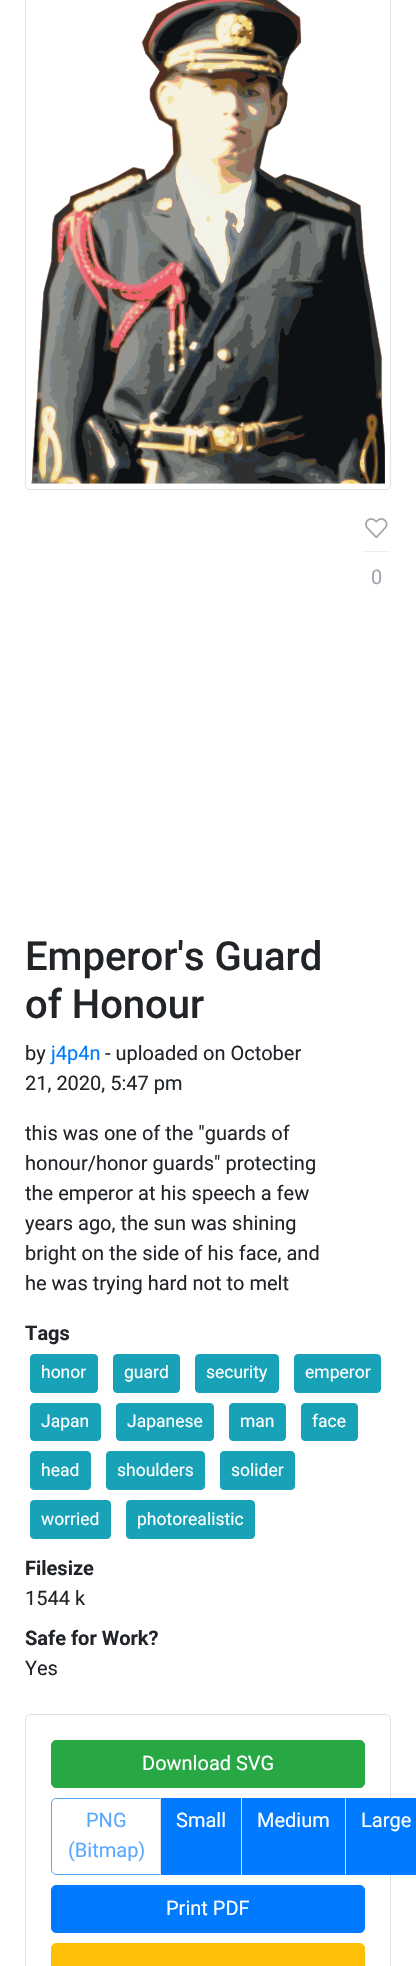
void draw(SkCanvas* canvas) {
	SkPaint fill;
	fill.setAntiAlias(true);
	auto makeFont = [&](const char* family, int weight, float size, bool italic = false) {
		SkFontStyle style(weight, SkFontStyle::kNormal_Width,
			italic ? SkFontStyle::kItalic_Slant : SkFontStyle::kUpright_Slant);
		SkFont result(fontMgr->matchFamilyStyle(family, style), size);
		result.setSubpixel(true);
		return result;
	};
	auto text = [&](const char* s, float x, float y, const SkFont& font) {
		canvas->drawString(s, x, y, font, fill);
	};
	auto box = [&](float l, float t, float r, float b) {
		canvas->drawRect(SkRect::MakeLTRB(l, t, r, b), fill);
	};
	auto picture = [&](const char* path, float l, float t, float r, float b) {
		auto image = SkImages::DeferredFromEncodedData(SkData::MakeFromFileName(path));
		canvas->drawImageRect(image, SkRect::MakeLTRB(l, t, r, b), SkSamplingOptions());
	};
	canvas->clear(0xFFFFFFFF);
	fill.setStyle(SkPaint::kStroke_Style);
	fill.setStrokeWidth(1);
	fill.setColor(0xFFDEE2E6);
	canvas->drawRoundRect(SkRect::MakeLTRB(25.5f, -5.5f, 390.5f, 489.5f), 4.5f, 4.5f, fill);
	picture("image0.png", 31, 0, 385, 484);
	picture("image1.png", 365, 518, 388, 539);
	fill.setStyle(SkPaint::kFill_Style);
	fill.setColor(0xFFEEEEEE);
	box(363, 551, 390, 552);
	fill.setColor(0xFF17A2B8);
	canvas->drawRoundRect(SkRect::MakeLTRB(30.5f, 1354.5f, 97.5f, 1392.5f), 3.5f, 3.5f, fill);
	fill.setStyle(SkPaint::kStroke_Style);
	canvas->drawRoundRect(SkRect::MakeLTRB(30.5f, 1354.5f, 97.5f, 1392.5f), 3.5f, 3.5f, fill);
	fill.setStyle(SkPaint::kFill_Style);
	canvas->drawRoundRect(SkRect::MakeLTRB(113.5f, 1354.5f, 179.5f, 1392.5f), 3.5f, 3.5f, fill);
	fill.setStyle(SkPaint::kStroke_Style);
	canvas->drawRoundRect(SkRect::MakeLTRB(113.5f, 1354.5f, 179.5f, 1392.5f), 3.5f, 3.5f, fill);
	fill.setStyle(SkPaint::kFill_Style);
	canvas->drawRoundRect(SkRect::MakeLTRB(195.5f, 1354.5f, 278.5f, 1392.5f), 3.5f, 3.5f, fill);
	fill.setStyle(SkPaint::kStroke_Style);
	canvas->drawRoundRect(SkRect::MakeLTRB(195.5f, 1354.5f, 278.5f, 1392.5f), 3.5f, 3.5f, fill);
	fill.setStyle(SkPaint::kFill_Style);
	canvas->drawRoundRect(SkRect::MakeLTRB(294.5f, 1354.5f, 380.5f, 1392.5f), 3.5f, 3.5f, fill);
	fill.setStyle(SkPaint::kStroke_Style);
	canvas->drawRoundRect(SkRect::MakeLTRB(294.5f, 1354.5f, 380.5f, 1392.5f), 3.5f, 3.5f, fill);
	fill.setStyle(SkPaint::kFill_Style);
	canvas->drawRoundRect(SkRect::MakeLTRB(30.5f, 1403.5f, 100.5f, 1440.5f), 3.5f, 3.5f, fill);
	fill.setStyle(SkPaint::kStroke_Style);
	canvas->drawRoundRect(SkRect::MakeLTRB(30.5f, 1403.5f, 100.5f, 1440.5f), 3.5f, 3.5f, fill);
	fill.setStyle(SkPaint::kFill_Style);
	canvas->drawRoundRect(SkRect::MakeLTRB(116.5f, 1403.5f, 213.5f, 1440.5f), 3.5f, 3.5f, fill);
	fill.setStyle(SkPaint::kStroke_Style);
	canvas->drawRoundRect(SkRect::MakeLTRB(116.5f, 1403.5f, 213.5f, 1440.5f), 3.5f, 3.5f, fill);
	fill.setStyle(SkPaint::kFill_Style);
	canvas->drawRoundRect(SkRect::MakeLTRB(229.5f, 1403.5f, 285.5f, 1440.5f), 3.5f, 3.5f, fill);
	fill.setStyle(SkPaint::kStroke_Style);
	canvas->drawRoundRect(SkRect::MakeLTRB(229.5f, 1403.5f, 285.5f, 1440.5f), 3.5f, 3.5f, fill);
	fill.setStyle(SkPaint::kFill_Style);
	canvas->drawRoundRect(SkRect::MakeLTRB(301.5f, 1403.5f, 357.5f, 1440.5f), 3.5f, 3.5f, fill);
	fill.setStyle(SkPaint::kStroke_Style);
	canvas->drawRoundRect(SkRect::MakeLTRB(301.5f, 1403.5f, 357.5f, 1440.5f), 3.5f, 3.5f, fill);
	fill.setStyle(SkPaint::kFill_Style);
	canvas->drawRoundRect(SkRect::MakeLTRB(30.5f, 1451.5f, 90.5f, 1489.5f), 3.5f, 3.5f, fill);
	fill.setStyle(SkPaint::kStroke_Style);
	canvas->drawRoundRect(SkRect::MakeLTRB(30.5f, 1451.5f, 90.5f, 1489.5f), 3.5f, 3.5f, fill);
	fill.setStyle(SkPaint::kFill_Style);
	canvas->drawRoundRect(SkRect::MakeLTRB(106.5f, 1451.5f, 204.5f, 1489.5f), 3.5f, 3.5f, fill);
	fill.setStyle(SkPaint::kStroke_Style);
	canvas->drawRoundRect(SkRect::MakeLTRB(106.5f, 1451.5f, 204.5f, 1489.5f), 3.5f, 3.5f, fill);
	fill.setStyle(SkPaint::kFill_Style);
	canvas->drawRoundRect(SkRect::MakeLTRB(220.5f, 1451.5f, 294.5f, 1489.5f), 3.5f, 3.5f, fill);
	fill.setStyle(SkPaint::kStroke_Style);
	canvas->drawRoundRect(SkRect::MakeLTRB(220.5f, 1451.5f, 294.5f, 1489.5f), 3.5f, 3.5f, fill);
	fill.setStyle(SkPaint::kFill_Style);
	canvas->drawRoundRect(SkRect::MakeLTRB(30.5f, 1500.5f, 110.5f, 1538.5f), 3.5f, 3.5f, fill);
	fill.setStyle(SkPaint::kStroke_Style);
	canvas->drawRoundRect(SkRect::MakeLTRB(30.5f, 1500.5f, 110.5f, 1538.5f), 3.5f, 3.5f, fill);
	fill.setStyle(SkPaint::kFill_Style);
	canvas->drawRoundRect(SkRect::MakeLTRB(126.5f, 1500.5f, 254.5f, 1538.5f), 3.5f, 3.5f, fill);
	fill.setStyle(SkPaint::kStroke_Style);
	canvas->drawRoundRect(SkRect::MakeLTRB(126.5f, 1500.5f, 254.5f, 1538.5f), 3.5f, 3.5f, fill);
	fill.setColor(0xFFDFDFDF);
	canvas->drawRoundRect(SkRect::MakeLTRB(25.5f, 1714.5f, 390.5f, 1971.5f), 4.5f, 4.5f, fill);
	fill.setStyle(SkPaint::kFill_Style);
	fill.setColor(0xFF28A745);
	canvas->drawRoundRect(SkRect::MakeLTRB(51.5f, 1740.5f, 364.5f, 1787.5f), 4.5f, 4.5f, fill);
	fill.setStyle(SkPaint::kStroke_Style);
	canvas->drawRoundRect(SkRect::MakeLTRB(51.5f, 1740.5f, 364.5f, 1787.5f), 4.5f, 4.5f, fill);
	fill.setColor(0xFF59A9FF);
	canvas->drawPath(SkPathBuilder().moveTo(56, 1798.5f).lineTo(160.5f, 1798.5f).lineTo(160.5f, 1874.5f).lineTo(56, 1874.5f).cubicTo(53.5f, 1874.5f, 51.5f, 1872.5f, 51.5f, 1870).lineTo(51.5f, 1803).cubicTo(51.5f, 1800.5f, 53.5f, 1798.5f, 56, 1798.5f).close().detach(), fill);
	fill.setStyle(SkPaint::kFill_Style);
	fill.setColor(0xFF007BFF);
	box(161, 1798, 241, 1875);
	fill.setColor(0xFFDEE2E6);
	box(160, 1798, 161, 1875);
	fill.setColor(0xFF007BFF);
	box(242, 1798, 416, 1875);
	fill.setColor(0xFFDEE2E6);
	box(241, 1798, 242, 1875);
	canvas->drawPath(SkPathBuilder().moveTo(346, 1799).lineTo(345, 1798).lineTo(345, 1875).lineTo(346, 1874).close().detach(), fill);
	fill.setColor(0xFF007BFF);
	canvas->drawRoundRect(SkRect::MakeLTRB(51.5f, 1885.5f, 364.5f, 1932.5f), 4.5f, 4.5f, fill);
	fill.setStyle(SkPaint::kStroke_Style);
	canvas->drawRoundRect(SkRect::MakeLTRB(51.5f, 1885.5f, 364.5f, 1932.5f), 4.5f, 4.5f, fill);
	fill.setStyle(SkPaint::kFill_Style);
	fill.setColor(0xFFFFC107);
	canvas->drawRoundRect(SkRect::MakeLTRB(51.5f, 1943.5f, 364.5f, 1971.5f), 4.5f, 4.5f, fill);
	fill.setStyle(SkPaint::kStroke_Style);
	canvas->drawRoundRect(SkRect::MakeLTRB(51.5f, 1943.5f, 364.5f, 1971.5f), 4.5f, 4.5f, fill);
	auto font1 = makeFont("Roboto", 400, 20);
	fill.setStyle(SkPaint::kFill_Style);
	fill.setColor(0xFF9FA5AB);
	text("0", 371, 584, font1);
	auto font2 = makeFont("Roboto", 500, 40);
	fill.setColor(0xFF212529);
	text("Emperor's Guard", 25, 970, font2);
	text("of Honour", 25, 1018, font2);
	text("by", 25, 1060, font1);
	fill.setColor(0xFF007BFF);
	text("j4p4n", 51, 1060, font1);
	fill.setColor(0xFF212529);
	text("- uploaded on October", 105, 1060, font1);
	text("21, 2020, 5:47 pm", 25, 1090, font1);
	text("this was one of the \"guards of", 25, 1140, font1);
	text("honour/honor guards\" protecting", 25, 1170, font1);
	text("the emperor at his speech a few", 25, 1200, font1);
	text("years ago, the sun was shining", 25, 1230, font1);
	text("bright on the side of his face, and", 25, 1260, font1);
	text("he was trying hard not to melt", 25, 1290, font1);
	auto font3 = makeFont("Roboto", 700, 20);
	text("Tags", 25, 1340, font3);
	auto font4 = makeFont("Roboto", 400, 17.5f);
	fill.setColor(0xFFFFFFFF);
	text("honor", 41, 1378, font4);
	text("guard", 124, 1378, font4);
	text("security", 206, 1378, font4);
	text("emperor", 305, 1378, font4);
	text("Japan", 41, 1427, font4);
	text("Japanese", 127, 1427, font4);
	text("man", 240, 1427, font4);
	text("face", 312, 1427, font4);
	text("head", 41, 1476, font4);
	text("shoulders", 117, 1476, font4);
	text("solider", 231, 1476, font4);
	text("worried", 41, 1525, font4);
	text("photorealistic", 137, 1525, font4);
	fill.setColor(0xFF212529);
	text("Filesize", 25, 1575, font3);
	text("1544 k", 25, 1605, font1);
	text("Safe for Work?", 25, 1645, font3);
	text("Yes", 25, 1675, font1);
	fill.setColor(0xFFFFFFFF);
	text("Download SVG", 142, 1770, font1);
	fill.setColor(0xFF59A9FF);
	text("PNG", 86, 1827, font1);
	text("(Bitmap)", 68, 1857, font1);
	fill.setColor(0xFFFFFFFF);
	text("Small", 176, 1827, font1);
	text("Medium", 257, 1827, font1);
	text("Large", 361, 1827, font1);
	text("Print PDF", 166, 1915, font1);
}
